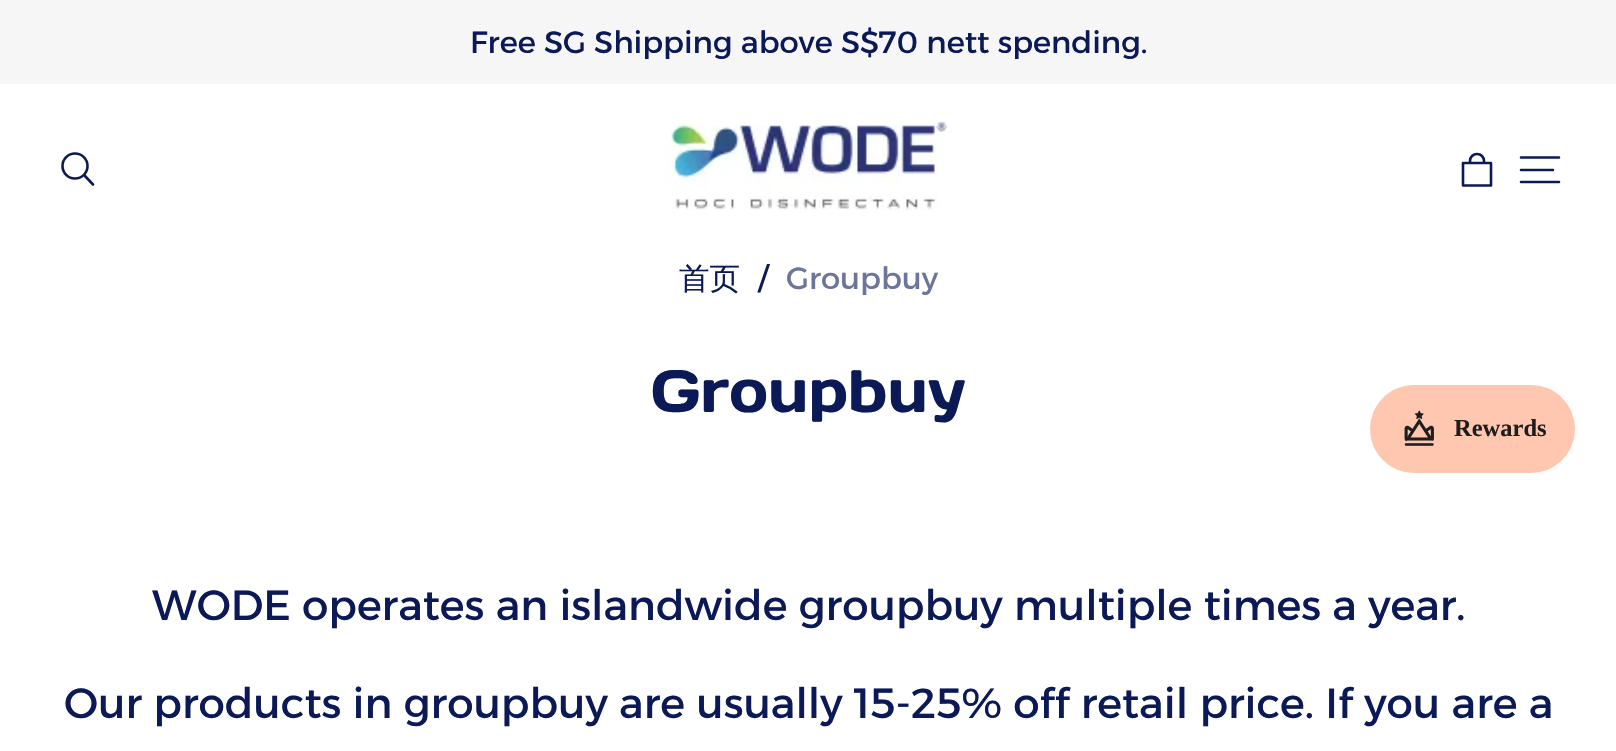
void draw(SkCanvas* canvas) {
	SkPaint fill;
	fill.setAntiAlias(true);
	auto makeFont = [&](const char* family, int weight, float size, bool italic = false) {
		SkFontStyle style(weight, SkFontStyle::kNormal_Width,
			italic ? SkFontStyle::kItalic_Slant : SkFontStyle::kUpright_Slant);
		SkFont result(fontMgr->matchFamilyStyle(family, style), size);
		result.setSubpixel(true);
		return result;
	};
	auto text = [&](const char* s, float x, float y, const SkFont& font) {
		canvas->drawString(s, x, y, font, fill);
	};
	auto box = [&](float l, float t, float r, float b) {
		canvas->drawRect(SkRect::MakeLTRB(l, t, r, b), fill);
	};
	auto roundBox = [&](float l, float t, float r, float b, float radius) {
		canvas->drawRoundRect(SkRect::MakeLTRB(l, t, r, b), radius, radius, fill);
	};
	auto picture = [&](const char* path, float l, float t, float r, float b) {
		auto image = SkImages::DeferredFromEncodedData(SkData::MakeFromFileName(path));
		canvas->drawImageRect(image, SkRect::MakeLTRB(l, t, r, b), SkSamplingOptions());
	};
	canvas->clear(0xFFFFFFFF);
	fill.setColor(0xFFF6F6F6);
	box(0, 0, 1616, 84);
	fill.setStyle(SkPaint::kStroke_Style);
	fill.setStrokeWidth(2.6f);
	fill.setColor(0xFF0B1957);
	canvas->drawCircle(75, 166, 12.5f, fill);
	fill.setStrokeCap(SkPaint::kRound_Cap);
	canvas->drawPath(SkPathBuilder().moveTo(85, 176).lineTo(93, 184.5f).detach(), fill);
	picture("image0.png", 665, 112, 952, 210);
	fill.setStrokeJoin(SkPaint::kRound_Join);
	canvas->drawPath(SkPathBuilder().moveTo(1463, 185.5f).lineTo(1463, 163).lineTo(1491, 163).lineTo(1491, 185.5f).close().moveTo(1470, 163).lineTo(1470, 161).cubicTo(1470, 157, 1473, 154, 1477, 154).cubicTo(1481, 154, 1484, 157, 1484, 161).lineTo(1484, 163).detach(), fill);
	fill.setStrokeJoin(SkPaint::kMiter_Join);
	canvas->drawPath(SkPathBuilder().moveTo(1521, 157.5f).lineTo(1559, 157.5f).moveTo(1521, 170).lineTo(1553, 170).moveTo(1521, 182).lineTo(1559, 182).detach(), fill);
	fill.setStyle(SkPaint::kFill_Style);
	fill.setColor(0xFFFFC7B0);
	roundBox(1370, 385, 1575, 473, 44);
	picture("image1.png", 1404, 410, 1434, 446);
	auto font1 = makeFont("Alexandria", 400, 30.6f);
	fill.setColor(0xFF0B1957);
	text("Free SG Shipping above S$70 nett spending.", 470, 53, font1);
	auto font2 = makeFont("WenQuanYi Zen Hei", 500, 30.6f);
	text("首页", 679, 289, font2);
	text("/", 758, 289, font1);
	fill.setColor(0xFF6D759A);
	text("Groupbuy", 786, 289, font1);
	auto font3 = makeFont("Days One", 400, 59.5f);
	fill.setColor(0xFF0B1957);
	text("Groupbuy", 651, 412, font3);
	auto font4 = makeFont("Alexandria", 400, 42);
	text("WODE operates an islandwide groupbuy multiple times a year.", 152, 620, font4);
	text("Our products in groupbuy are usually 15-25% off retail price. If you are a", 64, 718, font4);
	auto font5 = makeFont("Liberation Serif", 700, 24.5f);
	fill.setColor(0xFF1F1E1E);
	text("Rewards", 1454, 436, font5);
}
